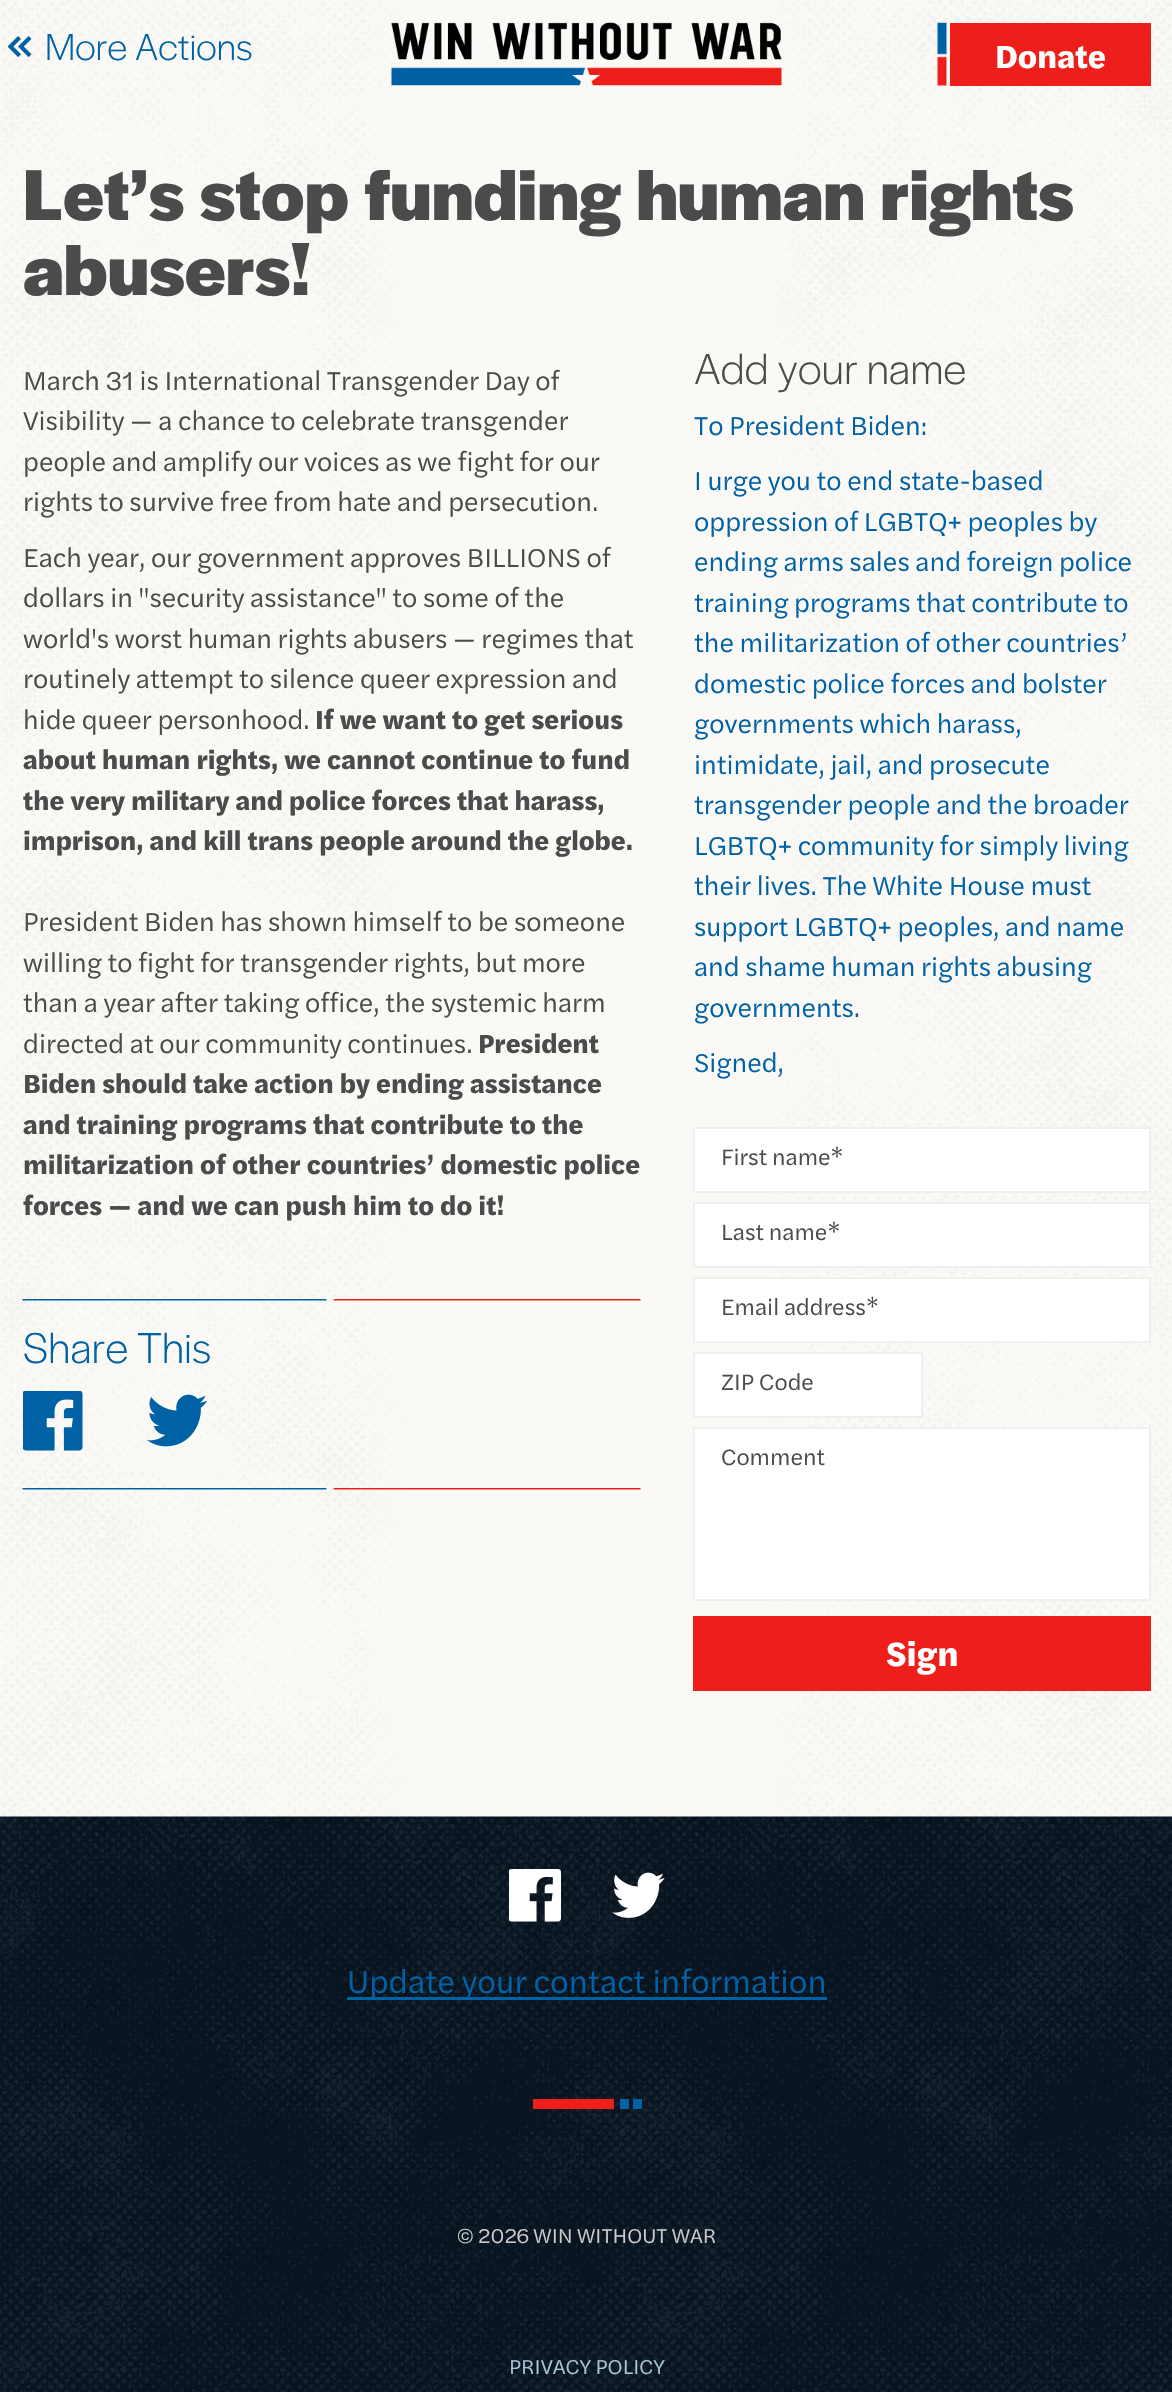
void draw(SkCanvas* canvas) {
	SkPaint fill;
	fill.setAntiAlias(true);
	auto makeFont = [&](const char* family, int weight, float size, bool italic = false) {
		SkFontStyle style(weight, SkFontStyle::kNormal_Width,
			italic ? SkFontStyle::kItalic_Slant : SkFontStyle::kUpright_Slant);
		SkFont result(fontMgr->matchFamilyStyle(family, style), size);
		result.setSubpixel(true);
		return result;
	};
	auto text = [&](const char* s, float x, float y, const SkFont& font) {
		canvas->drawString(s, x, y, font, fill);
	};
	auto box = [&](float l, float t, float r, float b) {
		canvas->drawRect(SkRect::MakeLTRB(l, t, r, b), fill);
	};
	auto picture = [&](const char* path, float l, float t, float r, float b) {
		auto image = SkImages::DeferredFromEncodedData(SkData::MakeFromFileName(path));
		canvas->drawImageRect(image, SkRect::MakeLTRB(l, t, r, b), SkSamplingOptions());
	};
	canvas->clear(0xFFFAF9F6);
	picture("image0.png", 0, 0, 1172, 1817);
	picture("image1.png", 391, 22, 782, 86);
	picture("image2.png", 8, 36, 32, 57);
	fill.setColor(0xFFEE1E1A);
	box(950, 23, 1151, 86);
	picture("image3.png", 937, 22, 947, 86);
	picture("image4.png", 22, 1299, 641, 1301);
	picture("image5.png", 23, 1391, 83, 1451);
	picture("image6.png", 147, 1394, 207, 1447);
	picture("image7.png", 22, 1488, 641, 1490);
	fill.setColor(0xFFFFFFFF);
	canvas->drawRect(SkRect::MakeLTRB(694, 1128, 1150, 1192), fill);
	fill.setStyle(SkPaint::kStroke_Style);
	fill.setStrokeWidth(2);
	fill.setColor(0xFFEFEFEF);
	canvas->drawRect(SkRect::MakeLTRB(694, 1128, 1150, 1192), fill);
	fill.setStyle(SkPaint::kFill_Style);
	fill.setColor(0xFFFFFFFF);
	canvas->drawRect(SkRect::MakeLTRB(694, 1203, 1150, 1267), fill);
	fill.setStyle(SkPaint::kStroke_Style);
	fill.setColor(0xFFEFEFEF);
	canvas->drawRect(SkRect::MakeLTRB(694, 1203, 1150, 1267), fill);
	fill.setStyle(SkPaint::kFill_Style);
	fill.setColor(0xFFFFFFFF);
	canvas->drawRect(SkRect::MakeLTRB(694, 1278, 1150, 1342), fill);
	fill.setStyle(SkPaint::kStroke_Style);
	fill.setColor(0xFFEFEFEF);
	canvas->drawRect(SkRect::MakeLTRB(694, 1278, 1150, 1342), fill);
	fill.setStyle(SkPaint::kFill_Style);
	fill.setColor(0xFFFFFFFF);
	canvas->drawRect(SkRect::MakeLTRB(694, 1353, 922, 1417), fill);
	fill.setStyle(SkPaint::kStroke_Style);
	fill.setColor(0xFFEFEFEF);
	canvas->drawRect(SkRect::MakeLTRB(694, 1353, 922, 1417), fill);
	fill.setStyle(SkPaint::kFill_Style);
	fill.setColor(0xFFFFFFFF);
	canvas->drawRect(SkRect::MakeLTRB(694, 1428, 1150, 1600), fill);
	fill.setStyle(SkPaint::kStroke_Style);
	fill.setColor(0xFFEFEFEF);
	canvas->drawRect(SkRect::MakeLTRB(694, 1428, 1150, 1600), fill);
	fill.setStyle(SkPaint::kFill_Style);
	fill.setColor(0xFFEE1E1A);
	box(693, 1616, 1151, 1691);
	picture("image8.png", 0, 1816, 1172, 2392);
	picture("image9.png", 509, 1869, 561, 1922);
	picture("image10.png", 612, 1872, 665, 1918);
	fill.setColor(0xFF0061A4);
	box(347, 1997, 827, 2000);
	fill.setColor(0xFFEE1E1A);
	box(533, 2099, 614, 2109);
	fill.setColor(0xFF0061A4);
	box(620, 2099, 629, 2109);
	box(633, 2099, 642, 2109);
	auto font1 = makeFont("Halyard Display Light", 300, 39);
	text("More Actions", 45, 60, font1);
	auto font2 = makeFont("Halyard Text", 700, 33);
	fill.setColor(0xFFFFFFFF);
	text("Donate", 995, 68, font2);
	auto font3 = makeFont("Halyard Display", 700, 75);
	fill.setColor(0xFF4C4B4B);
	text("Let’s stop funding human rights", 23, 220, font3);
	text("abusers!", 23, 295, font3);
	auto font4 = makeFont("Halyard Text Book", 400, 27);
	text("March 31 is International Transgender Day of", 23, 390, font4);
	text("Visibility — a chance to celebrate transgender", 23, 430, font4);
	text("people and amplify our voices as we fight for our", 23, 471, font4);
	text("rights to survive free from hate and persecution.", 23, 511, font4);
	text("Each year, our government approves BILLIONS of", 23, 567, font4);
	text("dollars in \"security assistance\" to some of the", 23, 607, font4);
	text("world's worst human rights abusers — regimes that", 23, 648, font4);
	text("routinely attempt to silence queer expression and", 23, 688, font4);
	text("hide queer personhood.", 23, 729, font4);
	auto font5 = makeFont("Halyard Text", 700, 27);
	text("If we want to get serious", 315, 729, font5);
	text("about human rights, we cannot continue to fund", 23, 769, font5);
	text("the very military and police forces that harass,", 23, 810, font5);
	text("imprison, and kill trans people around the globe.", 23, 850, font5);
	text("President Biden has shown himself to be someone", 23, 931, font4);
	text("willing to fight for transgender rights, but more", 23, 972, font4);
	text("than a year after taking office, the systemic harm", 23, 1012, font4);
	text("directed at our community continues.", 23, 1053, font4);
	text("President", 478, 1053, font5);
	text("Biden should take action by ending assistance", 23, 1093, font5);
	text("and training programs that contribute to the", 23, 1134, font5);
	text("militarization of other countries’ domestic police", 23, 1174, font5);
	text("forces — and we can push him to do it!", 23, 1215, font5);
	auto font6 = makeFont("Halyard Display Light", 300, 45);
	fill.setColor(0xFF0061A4);
	text("Share This", 23, 1363, font6);
	fill.setColor(0xFF4C4B4B);
	text("Add your name", 694, 384, font6);
	fill.setColor(0xFF0061A4);
	text("To President Biden:", 694, 435, font4);
	text("I urge you to end state-based", 694, 490, font4);
	text("oppression of LGBTQ+ peoples by", 694, 531, font4);
	text("ending arms sales and foreign police", 694, 571, font4);
	text("training programs that contribute to", 694, 612, font4);
	text("the militarization of other countries’", 694, 652, font4);
	text("domestic police forces and bolster", 694, 693, font4);
	text("governments which harass,", 694, 733, font4);
	text("intimidate, jail, and prosecute", 694, 774, font4);
	text("transgender people and the broader", 694, 814, font4);
	text("LGBTQ+ community for simply living", 694, 855, font4);
	text("their lives. The White House must", 694, 895, font4);
	text("support LGBTQ+ peoples, and name", 694, 936, font4);
	text("and shame human rights abusing", 694, 976, font4);
	text("governments.", 694, 1017, font4);
	text("Signed,", 694, 1072, font4);
	auto font7 = makeFont("Halyard Text Book", 400, 23.25f);
	fill.setColor(0xFF4C4B4B);
	text("First name*", 721, 1165, font7);
	text("Last name*", 721, 1240, font7);
	text("Email address*", 721, 1315, font7);
	text("ZIP Code", 721, 1390, font7);
	text("Comment", 721, 1465, font7);
	auto font8 = makeFont("Halyard Text", 700, 35);
	fill.setColor(0xFFFFFFFF);
	text("Sign", 886, 1666, font8);
	auto font9 = makeFont("Halyard Text Book", 400, 33);
	fill.setColor(0xFF0061A4);
	text("Update your contact information", 347, 1993, font9);
	auto font10 = makeFont("Halyard Text Book", 400, 21);
	fill.setColor(0xFFCCCCCC);
	text("© 2026 WIN WITHOUT WAR", 457, 2243, font10);
	fill.setColor(0xFFABC7D9);
	text("PRIVACY POLICY", 509, 2374, font10);
}
